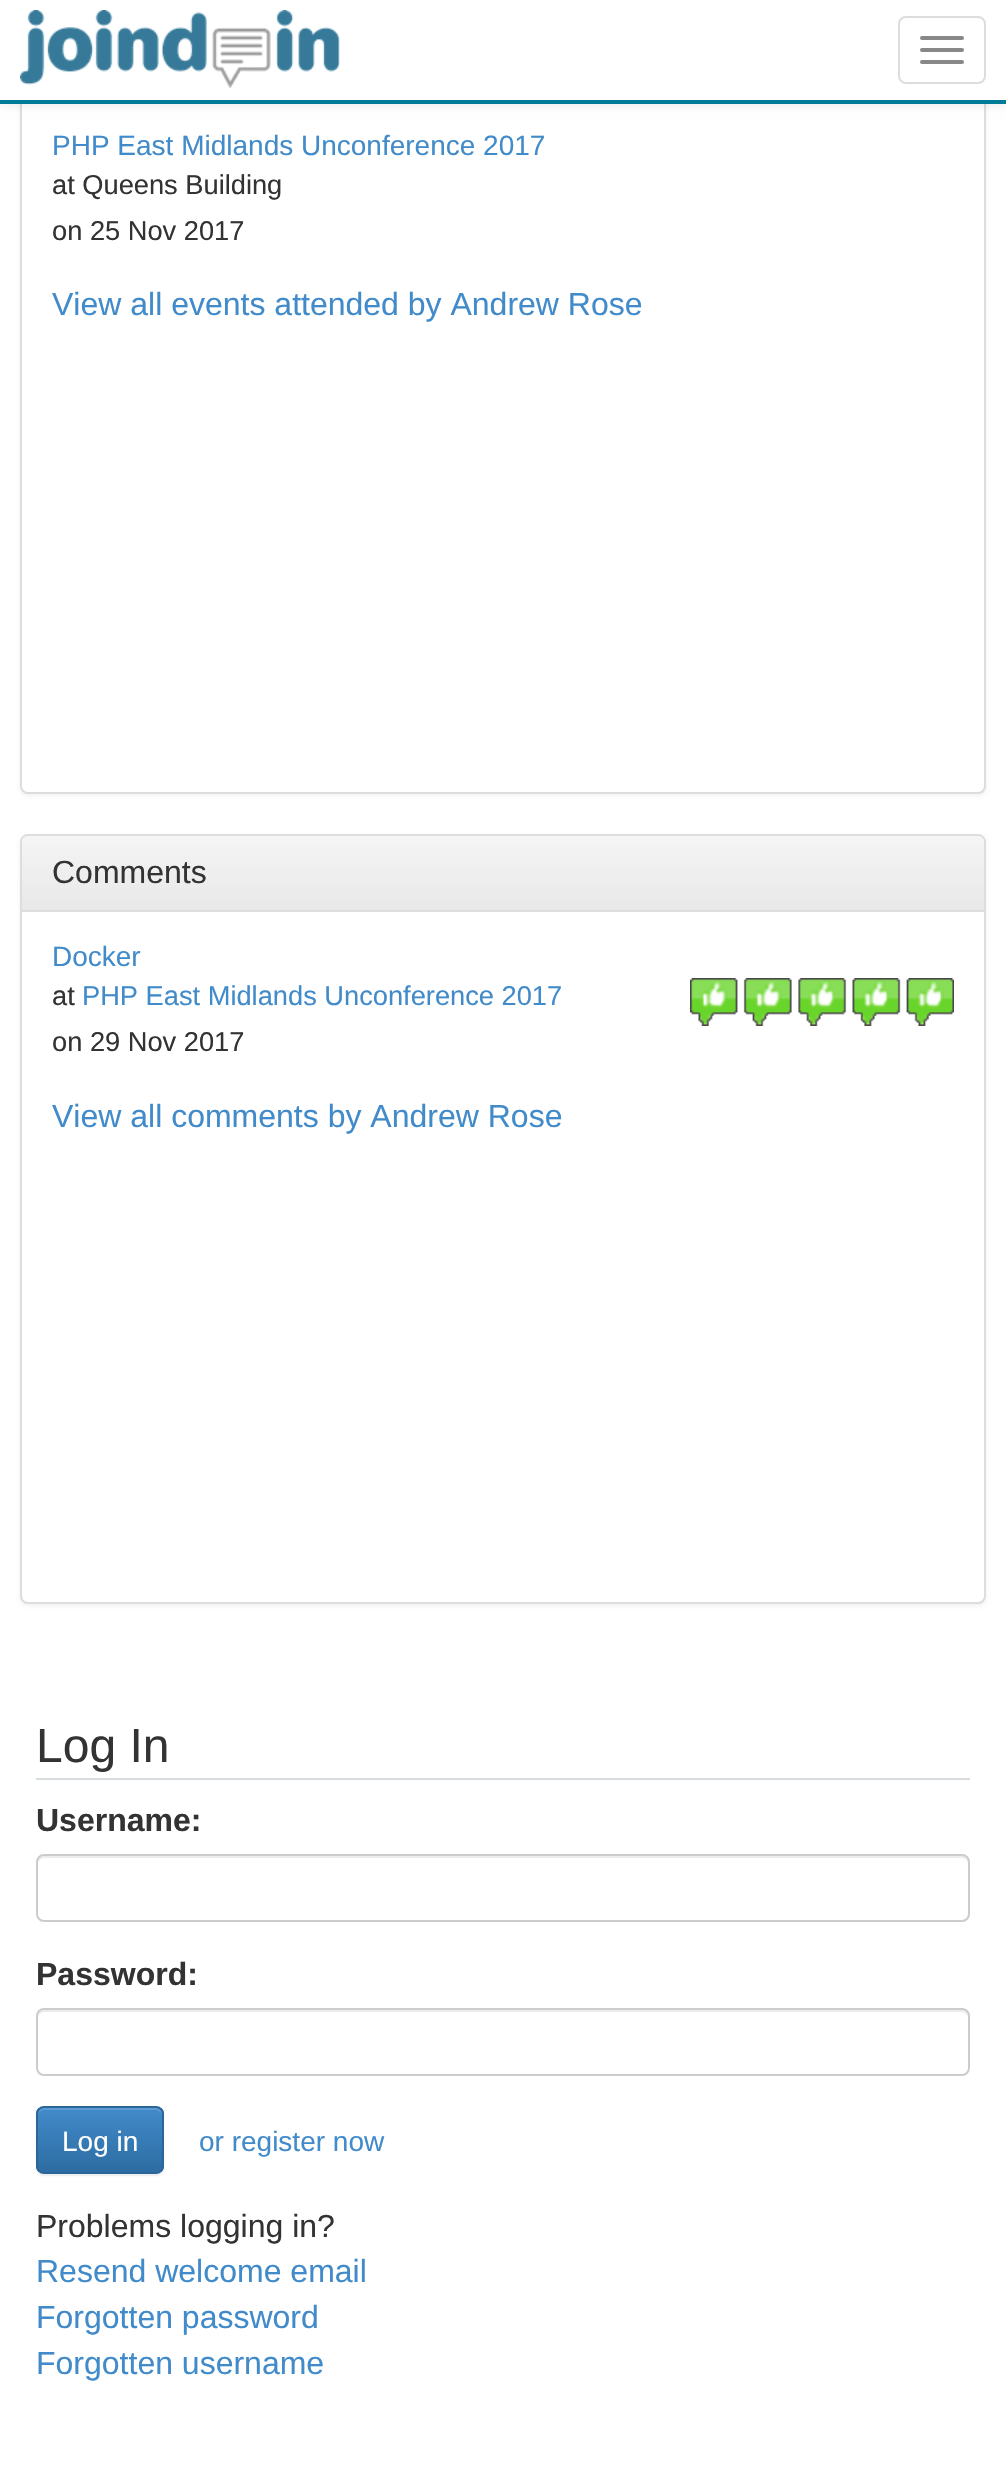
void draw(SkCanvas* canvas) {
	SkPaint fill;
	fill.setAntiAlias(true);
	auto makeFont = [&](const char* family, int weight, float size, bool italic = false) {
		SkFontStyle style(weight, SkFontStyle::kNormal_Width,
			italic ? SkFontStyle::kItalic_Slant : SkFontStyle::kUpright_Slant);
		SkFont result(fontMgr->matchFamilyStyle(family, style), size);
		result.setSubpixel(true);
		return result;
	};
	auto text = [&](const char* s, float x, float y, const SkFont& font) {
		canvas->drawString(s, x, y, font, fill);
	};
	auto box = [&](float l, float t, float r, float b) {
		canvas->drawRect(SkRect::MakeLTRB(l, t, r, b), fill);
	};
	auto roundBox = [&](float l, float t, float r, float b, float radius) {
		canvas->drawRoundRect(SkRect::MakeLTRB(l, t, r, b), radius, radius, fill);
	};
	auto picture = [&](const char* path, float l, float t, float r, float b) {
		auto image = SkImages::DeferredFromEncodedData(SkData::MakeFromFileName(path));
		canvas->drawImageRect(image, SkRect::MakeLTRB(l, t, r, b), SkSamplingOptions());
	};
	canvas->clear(0xFFFFFFFF);
	fill.setColor(0x0D000000);
	fill.setMaskFilter(SkMaskFilter::MakeBlur(kNormal_SkBlurStyle, 2));
	canvas->drawRoundRect(SkRect::MakeLTRB(20, 24, 986, 796), 8, 8, fill);
	fill.setMaskFilter(nullptr);
	fill.setColor(0xFFFFFFFF);
	canvas->drawRoundRect(SkRect::MakeLTRB(21, 23, 985, 793), 7, 7, fill);
	fill.setStyle(SkPaint::kStroke_Style);
	fill.setStrokeWidth(2);
	fill.setColor(0xFFDDDDDD);
	canvas->drawRoundRect(SkRect::MakeLTRB(21, 23, 985, 793), 7, 7, fill);
	fill.setStyle(SkPaint::kFill_Style);
	fill.setColor(0x12000000);
	fill.setMaskFilter(SkMaskFilter::MakeBlur(kNormal_SkBlurStyle, 5));
	canvas->drawRect(SkRect::MakeLTRB(0, 2, 1006, 106), fill);
	fill.setMaskFilter(nullptr);
	fill.setColor(0xFFFFFFFF);
	box(0, 0, 1006, 100);
	fill.setColor(0xFF007B97);
	box(0, 100, 1006, 104);
	picture("image0.png", 20, 10, 340, 89);
	fill.setStyle(SkPaint::kStroke_Style);
	fill.setColor(0xFFDDDDDD);
	canvas->drawRoundRect(SkRect::MakeLTRB(899, 17, 985, 83), 7, 7, fill);
	fill.setStyle(SkPaint::kFill_Style);
	fill.setColor(0xFF888888);
	roundBox(920, 36, 964, 40, 2);
	roundBox(920, 48, 964, 52, 2);
	roundBox(920, 60, 964, 64, 2);
	fill.setColor(0x0D000000);
	fill.setMaskFilter(SkMaskFilter::MakeBlur(kNormal_SkBlurStyle, 2));
	canvas->drawRoundRect(SkRect::MakeLTRB(20, 836, 986, 1606), 8, 8, fill);
	fill.setMaskFilter(nullptr);
	fill.setColor(0xFFFFFFFF);
	canvas->drawRoundRect(SkRect::MakeLTRB(21, 835, 985, 1603), 7, 7, fill);
	fill.setStyle(SkPaint::kStroke_Style);
	fill.setColor(0xFFDDDDDD);
	canvas->drawRoundRect(SkRect::MakeLTRB(21, 835, 985, 1603), 7, 7, fill);
	fill.setStyle(SkPaint::kFill_Style);
	{
		const SkColor colors[] = {0xFFF5F5F5, 0xFFE8E8E8};
		const float stops[] = {0, 1};
		const SkPoint ends[] = {{503, 836}, {503, 910}};
		fill.setShader(SkGradientShader::MakeLinear(ends, colors, stops, 2, SkTileMode::kClamp));
		fill.setAlpha(255);
	}
	canvas->drawPath(SkPathBuilder().moveTo(28, 836).lineTo(978, 836).cubicTo(981.5f, 836, 984, 838.5f, 984, 842).lineTo(984, 910).lineTo(22, 910).lineTo(22, 842).cubicTo(22, 838.5f, 24.5f, 836, 28, 836).close().detach(), fill);
	fill.setShader(nullptr);
	fill.setColor(0xFFDDDDDD);
	box(22, 910, 984, 912);
	picture("image1.png", 690, 978, 954, 1026);
	fill.setColor(0xFFD7DCDF);
	box(36, 1778, 970, 1780);
	fill.setColor(0xFFECECEC);
	canvas->drawPath(SkPathBuilder().moveTo(44, 1858).lineTo(962, 1858).cubicTo(965, 1858, 968, 1861, 968, 1864).lineTo(968, 1862).cubicTo(968, 1859, 965, 1856, 962, 1856).lineTo(44, 1856).cubicTo(41, 1856, 38, 1859, 38, 1862).lineTo(38, 1864).cubicTo(38, 1861, 41, 1858, 44, 1858).close().detach(), fill);
	fill.setStyle(SkPaint::kStroke_Style);
	fill.setColor(0xFFCCCCCC);
	canvas->drawRoundRect(SkRect::MakeLTRB(37, 1855, 969, 1921), 7, 7, fill);
	fill.setStyle(SkPaint::kFill_Style);
	fill.setColor(0xFFECECEC);
	canvas->drawPath(SkPathBuilder().moveTo(44, 2012).lineTo(962, 2012).cubicTo(965, 2012, 968, 2015, 968, 2018).lineTo(968, 2016).cubicTo(968, 2013, 965, 2010, 962, 2010).lineTo(44, 2010).cubicTo(41, 2010, 38, 2013, 38, 2016).lineTo(38, 2018).cubicTo(38, 2015, 41, 2012, 44, 2012).close().detach(), fill);
	fill.setStyle(SkPaint::kStroke_Style);
	fill.setColor(0xFFCCCCCC);
	canvas->drawRoundRect(SkRect::MakeLTRB(37, 2009, 969, 2075), 7, 7, fill);
	fill.setStyle(SkPaint::kFill_Style);
	fill.setColor(0x12000000);
	fill.setMaskFilter(SkMaskFilter::MakeBlur(kNormal_SkBlurStyle, 1));
	canvas->drawRoundRect(SkRect::MakeLTRB(36, 2108, 164, 2176), 8, 8, fill);
	fill.setMaskFilter(nullptr);
	canvas->save();
	canvas->clipPath(SkPathBuilder().moveTo(44, 2106).lineTo(156, 2106).cubicTo(160.5f, 2106, 164, 2109.5f, 164, 2114).lineTo(164, 2166).cubicTo(164, 2170.5f, 160.5f, 2174, 156, 2174).lineTo(44, 2174).cubicTo(39.5f, 2174, 36, 2170.5f, 36, 2166).lineTo(36, 2114).cubicTo(36, 2109.5f, 39.5f, 2106, 44, 2106).close().detach(), true);
	{
		const SkColor colors[] = {0xFF428BCA, 0xFF2D6CA2};
		const float stops[] = {0, 1};
		const SkPoint ends[] = {{100, 2108}, {100, 2172}};
		fill.setShader(SkGradientShader::MakeLinear(ends, colors, stops, 2, SkTileMode::kClamp));
		fill.setAlpha(255);
	}
	box(36, 2108, 164, 2172);
	canvas->restore();
	fill.setShader(nullptr);
	fill.setColor(0x26FFFFFF);
	canvas->drawPath(SkPathBuilder().moveTo(44, 2110).lineTo(156, 2110).cubicTo(159, 2110, 162, 2113, 162, 2116).lineTo(162, 2114).cubicTo(162, 2111, 159, 2108, 156, 2108).lineTo(44, 2108).cubicTo(41, 2108, 38, 2111, 38, 2114).lineTo(38, 2116).cubicTo(38, 2113, 41, 2110, 44, 2110).close().detach(), fill);
	fill.setStyle(SkPaint::kStroke_Style);
	fill.setColor(0xFF2B669A);
	canvas->drawRoundRect(SkRect::MakeLTRB(37, 2107, 163, 2173), 7, 7, fill);
	auto font1 = makeFont("Liberation Sans", 400, 28);
	fill.setStyle(SkPaint::kFill_Style);
	fill.setColor(0xFF428BCA);
	text("PHP East Midlands Unconference 2017", 52, 155, font1);
	auto font2 = makeFont("Liberation Sans", 400, 27.25f);
	fill.setColor(0xFF333333);
	text("at Queens Building", 52, 194, font2);
	text("on 25 Nov 2017", 52, 240, font2);
	auto font3 = makeFont("Liberation Sans", 400, 32);
	fill.setColor(0xFF428BCA);
	text("View all events attended by Andrew Rose", 52, 315, font3);
	fill.setColor(0xFF333333);
	text("Comments", 52, 883, font3);
	fill.setColor(0xFF428BCA);
	text("Docker", 52, 966, font1);
	fill.setColor(0xFF333333);
	text("at", 52, 1005, font2);
	fill.setColor(0xFF428BCA);
	text("PHP East Midlands Unconference 2017", 82, 1005, font2);
	fill.setColor(0xFF333333);
	text("on 29 Nov 2017", 52, 1051, font2);
	fill.setColor(0xFF428BCA);
	text("View all comments by Andrew Rose", 52, 1127, font3);
	auto font4 = makeFont("Liberation Sans", 400, 48);
	fill.setColor(0xFF333333);
	text("Log In", 36, 1762, font4);
	auto font5 = makeFont("Liberation Sans", 700, 32);
	text("Username:", 36, 1831, font5);
	text("Password:", 36, 1985, font5);
	fill.setColor(0xFFFFFFFF);
	text("Log in", 62, 2151, font1);
	fill.setColor(0xFF428BCA);
	text("or register now", 199, 2151, font1);
	fill.setColor(0xFF333333);
	text("Problems logging in?", 36, 2237, font3);
	fill.setColor(0xFF428BCA);
	text("Resend welcome email", 36, 2282, font3);
	text("Forgotten password", 36, 2328, font3);
	text("Forgotten username", 36, 2374, font3);
}
